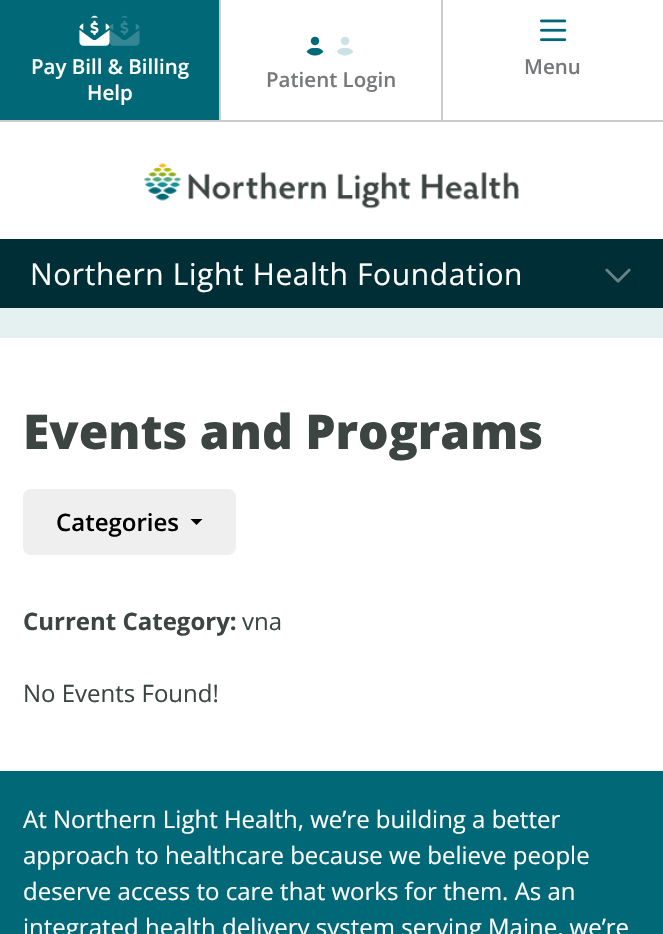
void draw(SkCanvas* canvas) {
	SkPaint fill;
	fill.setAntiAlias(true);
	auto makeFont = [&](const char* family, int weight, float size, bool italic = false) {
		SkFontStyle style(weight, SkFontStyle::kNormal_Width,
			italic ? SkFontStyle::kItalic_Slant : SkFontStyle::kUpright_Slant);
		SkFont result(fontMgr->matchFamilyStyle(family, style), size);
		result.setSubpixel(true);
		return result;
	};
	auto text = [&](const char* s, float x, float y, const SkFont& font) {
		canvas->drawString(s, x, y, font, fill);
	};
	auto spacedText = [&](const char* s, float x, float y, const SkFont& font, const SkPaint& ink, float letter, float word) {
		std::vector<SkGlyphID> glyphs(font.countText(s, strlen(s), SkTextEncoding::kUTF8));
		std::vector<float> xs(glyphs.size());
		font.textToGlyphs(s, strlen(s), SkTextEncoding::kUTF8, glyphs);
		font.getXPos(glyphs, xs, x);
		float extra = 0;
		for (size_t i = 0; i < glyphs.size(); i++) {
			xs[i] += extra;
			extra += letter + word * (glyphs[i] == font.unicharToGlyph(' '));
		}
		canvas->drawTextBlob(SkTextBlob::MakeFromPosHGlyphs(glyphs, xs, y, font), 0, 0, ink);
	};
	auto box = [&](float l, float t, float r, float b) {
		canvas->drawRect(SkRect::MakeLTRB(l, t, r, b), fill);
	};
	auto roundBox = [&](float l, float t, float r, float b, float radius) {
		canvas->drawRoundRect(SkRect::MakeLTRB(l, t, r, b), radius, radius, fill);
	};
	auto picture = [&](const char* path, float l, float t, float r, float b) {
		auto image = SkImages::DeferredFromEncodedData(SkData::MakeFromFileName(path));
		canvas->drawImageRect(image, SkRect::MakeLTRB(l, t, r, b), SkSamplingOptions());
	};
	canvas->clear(0xFFFFFFFF);
	fill.setColor(0xFF006877);
	box(0, 0, 219, 120);
	fill.setColor(0xFFCCCCCC);
	box(219, 0, 221, 122);
	box(0, 120, 221, 122);
	picture("image0.png", 79, 15, 110, 46);
	picture("image1.png", 79, 15, 140, 46);
	picture("image2.png", 540, 19, 567, 42);
	box(441, 0, 443, 122);
	box(221, 120, 663, 122);
	picture("image3.png", 306, 36, 324, 56);
	picture("image4.png", 306, 36, 354, 56);
	picture("image5.png", 144, 163, 519, 209);
	fill.setColor(0xFF002E36);
	box(0, 239, 663, 308);
	picture("image6.png", 605, 268, 631, 283);
	fill.setColor(0xFFE5F0F1);
	box(0, 308, 663, 338);
	fill.setColor(0xFFEFEFEF);
	roundBox(23, 489, 236, 555, 8);
	fill.setColor(0xFF000000);
	canvas->drawPath(SkPathBuilder().moveTo(190.5f, 519).lineTo(202.5f, 519).lineTo(196.5f, 525).close().detach(), fill);
	fill.setColor(0xFF006877);
	box(0, 771, 663, 934);
	auto font1 = makeFont("Open Sans", 600, 20.5f);
	fill.setColor(0xFFFFFFFF);
	text("Pay Bill & Billing", 31, 74, font1);
	text("Help", 87, 100, font1);
	fill.setColor(0xFF76787A);
	text("Menu", 524, 74, font1);
	text("Patient Login", 266, 87, font1);
	auto font2 = makeFont("Open Sans", 400, 30);
	fill.setColor(0xFFFFFFFF);
	spacedText("Northern Light Health Foundation", 30, 285, font2, fill, 0.6f, 0);
	auto font3 = makeFont("Open Sans", 800, 48);
	fill.setColor(0xFF3D4543);
	text("Events and Programs", 23, 449, font3);
	auto font4 = makeFont("Open Sans", 600, 24);
	fill.setColor(0xFF000000);
	text("Categories", 56, 531, font4);
	auto font5 = makeFont("Open Sans", 700, 24);
	fill.setColor(0xFF3D4543);
	text("Current Category:", 23, 630, font5);
	auto font6 = makeFont("Open Sans", 400, 24);
	text("vna", 242, 630, font6);
	text("No Events Found!", 23, 702, font6);
	fill.setColor(0xFFFFFFFF);
	text("At Northern Light Health, we’re building a better", 23, 828, font6);
	text("approach to healthcare because we believe people", 23, 864, font6);
	text("deserve access to care that works for them. As an", 23, 900, font6);
	text("integrated health delivery system serving Maine, we’re", 23, 936, font6);
}
